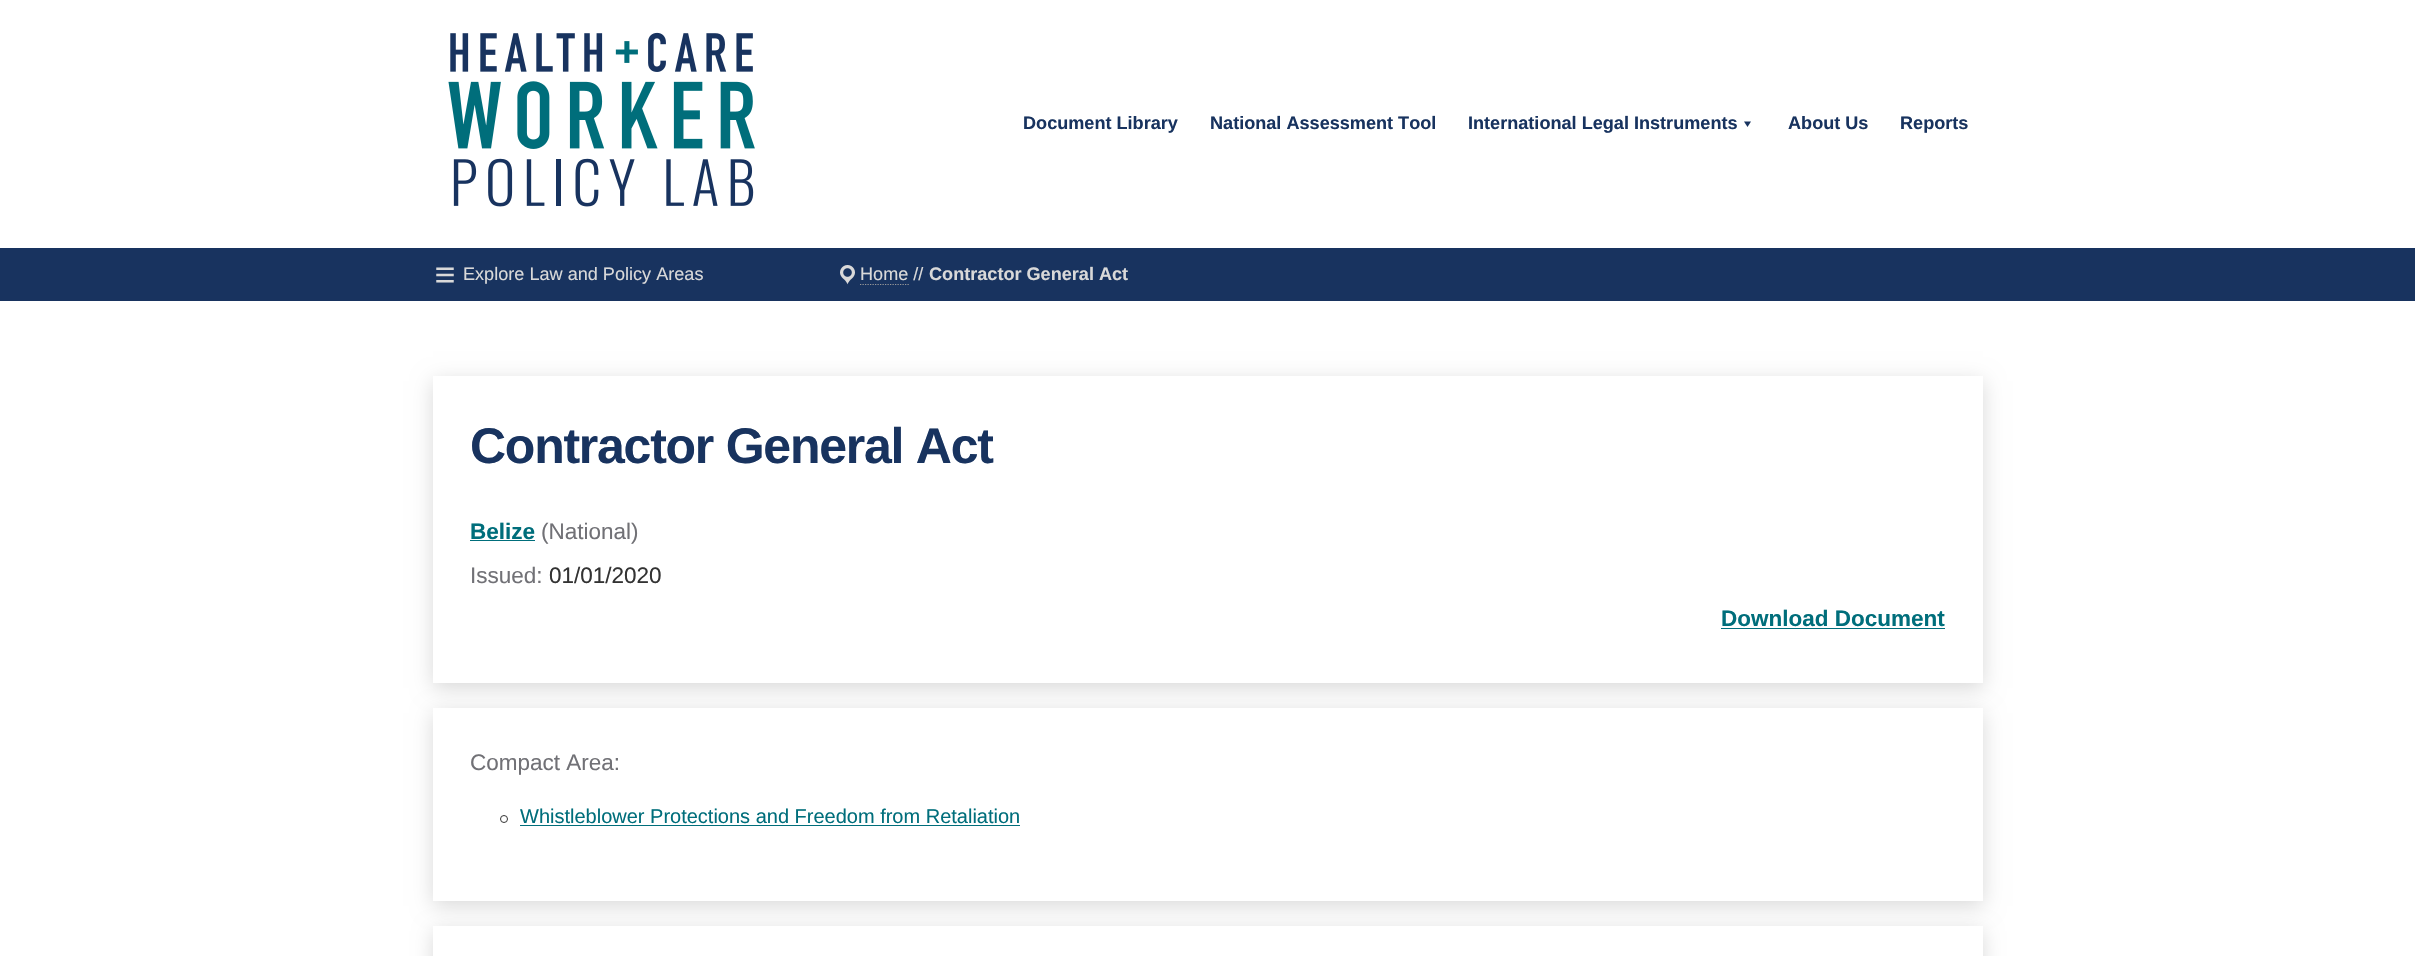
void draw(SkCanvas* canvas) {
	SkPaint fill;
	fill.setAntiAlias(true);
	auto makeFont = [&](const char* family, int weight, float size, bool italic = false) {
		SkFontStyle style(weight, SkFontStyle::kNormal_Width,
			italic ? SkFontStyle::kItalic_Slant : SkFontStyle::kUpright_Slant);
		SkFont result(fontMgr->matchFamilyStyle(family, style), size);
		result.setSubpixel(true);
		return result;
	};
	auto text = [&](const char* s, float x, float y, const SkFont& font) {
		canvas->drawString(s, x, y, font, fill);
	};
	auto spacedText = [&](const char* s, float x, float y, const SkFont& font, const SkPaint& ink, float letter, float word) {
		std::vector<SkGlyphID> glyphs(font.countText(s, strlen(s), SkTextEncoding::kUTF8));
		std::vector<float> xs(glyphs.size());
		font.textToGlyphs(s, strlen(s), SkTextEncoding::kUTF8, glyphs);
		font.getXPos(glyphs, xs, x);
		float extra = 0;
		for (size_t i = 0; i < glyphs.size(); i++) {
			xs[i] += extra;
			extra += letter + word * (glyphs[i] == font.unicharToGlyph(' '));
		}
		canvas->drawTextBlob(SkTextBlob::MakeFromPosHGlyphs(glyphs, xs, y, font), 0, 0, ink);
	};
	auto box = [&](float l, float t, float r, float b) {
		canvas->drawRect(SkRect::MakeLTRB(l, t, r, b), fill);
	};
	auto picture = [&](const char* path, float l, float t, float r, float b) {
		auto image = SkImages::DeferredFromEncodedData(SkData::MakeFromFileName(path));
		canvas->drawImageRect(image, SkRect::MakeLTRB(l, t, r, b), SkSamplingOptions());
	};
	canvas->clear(0xFFFFFFFF);
	picture("image0.png", 448, 32, 755, 207);
	fill.setColor(0xFF18335F);
	canvas->drawPath(SkPathBuilder().moveTo(1751, 121.5f).lineTo(1747.5f, 127).lineTo(1744, 121.5f).close().detach(), fill);
	box(0, 248, 2415, 301);
	picture("image1.png", 436, 267, 454, 283);
	picture("image2.png", 840, 265, 855, 285);
	fill.setStyle(SkPaint::kStroke_Style);
	fill.setStrokeWidth(1.2f);
	fill.setColor(0xFF999999);
	fill.setPathEffect(SkDashPathEffect::Make({{1.25f, 1.25f}}, 0));
	canvas->drawPath(SkPathBuilder().moveTo(860, 284.5f).lineTo(909, 284.5f).detach(), fill);
	fill.setPathEffect(nullptr);
	fill.setStyle(SkPaint::kFill_Style);
	fill.setColor(0x26000000);
	fill.setMaskFilter(SkMaskFilter::MakeBlur(kNormal_SkBlurStyle, 10));
	canvas->drawRect(SkRect::MakeLTRB(433, 381, 1983, 688), fill);
	fill.setMaskFilter(nullptr);
	fill.setColor(0xFFFFFFFF);
	box(433, 376, 1983, 683);
	fill.setColor(0xFF006E7B);
	box(470, 540, 535, 541);
	box(1721, 628, 1945, 629);
	fill.setColor(0x26000000);
	fill.setMaskFilter(SkMaskFilter::MakeBlur(kNormal_SkBlurStyle, 10));
	canvas->drawRect(SkRect::MakeLTRB(433, 713, 1983, 906), fill);
	fill.setMaskFilter(nullptr);
	fill.setColor(0xFFFFFFFF);
	box(433, 708, 1983, 901);
	fill.setStyle(SkPaint::kStroke_Style);
	fill.setStrokeWidth(1);
	fill.setColor(0xFF333333);
	canvas->drawCircle(504, 819, 3.5f, fill);
	fill.setStyle(SkPaint::kFill_Style);
	fill.setColor(0xFF006E7B);
	box(520, 825, 1020, 826);
	fill.setColor(0x26000000);
	fill.setMaskFilter(SkMaskFilter::MakeBlur(kNormal_SkBlurStyle, 10));
	canvas->drawRect(SkRect::MakeLTRB(433, 931, 1983, 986), fill);
	fill.setMaskFilter(nullptr);
	fill.setColor(0xFFFFFFFF);
	box(433, 926, 1983, 956);
	auto font1 = makeFont("Liberation Sans", 700, 18.1f);
	fill.setColor(0xFF18335F);
	text("Document Library", 1023, 129, font1);
	text("National Assessment Tool", 1210, 129, font1);
	text("International Legal Instruments", 1468, 129, font1);
	text("About Us", 1788, 129, font1);
	text("Reports", 1900, 129, font1);
	auto font2 = makeFont("Liberation Sans", 400, 18.1f);
	fill.setColor(0xFFD9D9D9);
	text("Explore Law and Policy Areas", 463, 280, font2);
	text("Home //", 860, 280, font2);
	text("Contractor General Act", 929, 280, font1);
	auto font3 = makeFont("Liberation Sans", 700, 50);
	fill.setColor(0xFF18335F);
	spacedText("Contractor General Act", 470, 463, font3, fill, -1.25f, 0);
	auto font4 = makeFont("Liberation Sans", 700, 22.5f);
	fill.setColor(0xFF006E7B);
	text("Belize", 470, 539, font4);
	auto font5 = makeFont("Liberation Sans", 400, 22.5f);
	fill.setColor(0xFF717176);
	text("(National)", 541, 539, font5);
	text("Issued:", 470, 583, font5);
	fill.setColor(0xFF333333);
	text("01/01/2020", 549, 583, font5);
	fill.setColor(0xFF006E7B);
	text("Download Document", 1721, 626, font4);
	fill.setColor(0xFF717176);
	text("Compact Area:", 470, 770, font5);
	auto font6 = makeFont("Liberation Sans", 400, 20);
	fill.setColor(0xFF006E7B);
	text("Whistleblower Protections and Freedom from Retaliation", 520, 823, font6);
}
